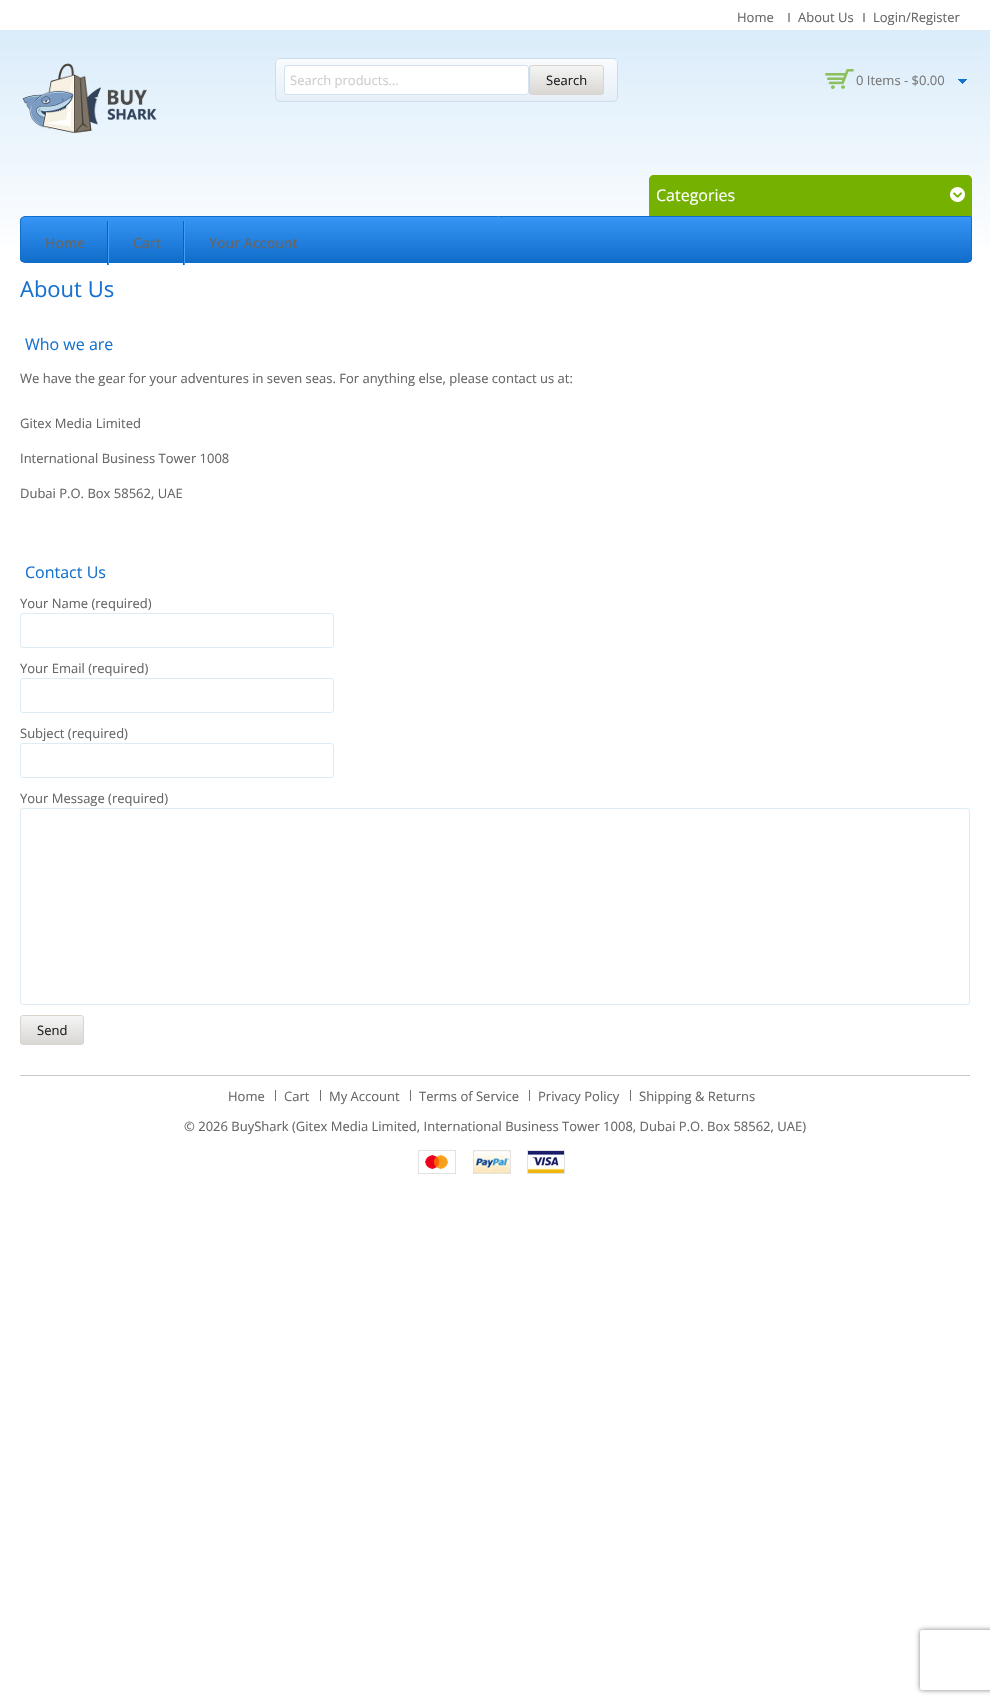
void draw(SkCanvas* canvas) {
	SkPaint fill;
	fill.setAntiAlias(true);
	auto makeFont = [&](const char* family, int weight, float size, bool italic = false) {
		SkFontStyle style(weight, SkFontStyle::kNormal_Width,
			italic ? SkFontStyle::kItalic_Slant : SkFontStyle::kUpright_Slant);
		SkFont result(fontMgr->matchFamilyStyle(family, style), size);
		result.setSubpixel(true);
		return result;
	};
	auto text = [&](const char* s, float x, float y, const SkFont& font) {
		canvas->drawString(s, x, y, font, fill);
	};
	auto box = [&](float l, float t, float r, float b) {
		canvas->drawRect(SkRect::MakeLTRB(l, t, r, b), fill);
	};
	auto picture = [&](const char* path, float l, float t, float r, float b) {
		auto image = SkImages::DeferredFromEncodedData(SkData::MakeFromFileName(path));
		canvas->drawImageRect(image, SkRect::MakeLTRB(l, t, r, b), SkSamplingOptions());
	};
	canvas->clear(0xFFFFFFFF);
	fill.setColor(0xFF9F9F9F);
	box(788, 13, 790, 22);
	box(863, 13, 865, 22);
	{
		const SkColor colors[] = {0xFFFFFFFF, 0xFFDAECFA};
		const float stops[] = {0, 1};
		const SkPoint ends[] = {{495, 263}, {495, 30}};
		fill.setShader(SkGradientShader::MakeLinear(ends, colors, stops, 2, SkTileMode::kClamp));
		fill.setAlpha(255);
	}
	box(0, 30, 990, 247);
	picture("image0.png", 22, 63, 157, 134);
	canvas->save();
	canvas->clipPath(SkPathBuilder().moveTo(280, 58).lineTo(613, 58).cubicTo(616, 58, 618, 60, 618, 63).lineTo(618, 97).cubicTo(618, 100, 616, 102, 613, 102).lineTo(280, 102).cubicTo(277, 102, 275, 100, 275, 97).lineTo(275, 63).cubicTo(275, 60, 277, 58, 280, 58).close().detach(), true);
	{
		const SkColor colors[] = {0xFFF9FBFE, 0xFFE6EFF8};
		const float stops[] = {0, 1};
		const SkPoint ends[] = {{447, 59}, {447, 101}};
		fill.setShader(SkGradientShader::MakeLinear(ends, colors, stops, 2, SkTileMode::kClamp));
		fill.setAlpha(255);
	}
	box(275, 59, 618, 101);
	canvas->restore();
	fill.setStyle(SkPaint::kStroke_Style);
	fill.setStrokeWidth(1);
	fill.setShader(nullptr);
	fill.setColor(0xFFCBDDEC);
	canvas->drawRoundRect(SkRect::MakeLTRB(275.5f, 58.5f, 617.5f, 101.5f), 4.5f, 4.5f, fill);
	fill.setStyle(SkPaint::kFill_Style);
	fill.setColor(0xFFFFFFFF);
	canvas->drawRoundRect(SkRect::MakeLTRB(284.5f, 65.5f, 528.5f, 94.5f), 2.5f, 2.5f, fill);
	fill.setStyle(SkPaint::kStroke_Style);
	fill.setColor(0xFFD1E2F0);
	canvas->drawRoundRect(SkRect::MakeLTRB(284.5f, 65.5f, 528.5f, 94.5f), 2.5f, 2.5f, fill);
	canvas->save();
	canvas->clipPath(SkPathBuilder().moveTo(532, 65).lineTo(601, 65).cubicTo(602.5f, 65, 604, 66.5f, 604, 68).lineTo(604, 92).cubicTo(604, 93.5f, 602.5f, 95, 601, 95).lineTo(532, 95).cubicTo(530.5f, 95, 529, 93.5f, 529, 92).lineTo(529, 68).cubicTo(529, 66.5f, 530.5f, 65, 532, 65).close().detach(), true);
	fill.setStyle(SkPaint::kFill_Style);
	{
		const SkColor colors[] = {0xFFF5F5F5, 0xFFD8D7D3};
		const float stops[] = {0, 1};
		const SkPoint ends[] = {{567, 66}, {567, 94}};
		fill.setShader(SkGradientShader::MakeLinear(ends, colors, stops, 2, SkTileMode::kClamp));
		fill.setAlpha(255);
	}
	box(529, 66, 604, 94);
	canvas->restore();
	fill.setStyle(SkPaint::kStroke_Style);
	fill.setShader(nullptr);
	fill.setColor(0xFFDAD4CD);
	canvas->drawRoundRect(SkRect::MakeLTRB(529.5f, 65.5f, 603.5f, 94.5f), 2.5f, 2.5f, fill);
	picture("image1.png", 825, 69, 854, 89);
	picture("image2.png", 958, 79, 967, 84);
	canvas->save();
	canvas->clipPath(SkPathBuilder().moveTo(25, 216).lineTo(972, 216).lineTo(972, 258).cubicTo(972, 261, 970, 263, 967, 263).lineTo(25, 263).cubicTo(22, 263, 20, 261, 20, 258).lineTo(20, 221).cubicTo(20, 218, 22, 216, 25, 216).close().detach(), true);
	fill.setStyle(SkPaint::kFill_Style);
	{
		const SkColor colors[] = {0xFF3695F5, 0xFF116DCA};
		const float stops[] = {0, 1};
		const SkPoint ends[] = {{496, 217}, {496, 262}};
		fill.setShader(SkGradientShader::MakeLinear(ends, colors, stops, 2, SkTileMode::kClamp));
		fill.setAlpha(255);
	}
	box(20, 217, 972, 262);
	canvas->restore();
	fill.setStyle(SkPaint::kStroke_Style);
	fill.setShader(nullptr);
	fill.setColor(0xFF116DCA);
	canvas->drawPath(SkPathBuilder().moveTo(25, 216.5f).lineTo(971.5f, 216.5f).lineTo(971.5f, 258).cubicTo(971.5f, 260.5f, 969.5f, 262.5f, 967, 262.5f).lineTo(25, 262.5f).cubicTo(22.5f, 262.5f, 20.5f, 260.5f, 20.5f, 258).lineTo(20.5f, 221).cubicTo(20.5f, 218.5f, 22.5f, 216.5f, 25, 216.5f).close().detach(), fill);
	fill.setStyle(SkPaint::kFill_Style);
	fill.setColor(0xFF74B101);
	canvas->drawPath(SkPathBuilder().moveTo(654, 175).lineTo(967, 175).cubicTo(970, 175, 972, 177, 972, 180).lineTo(972, 216).lineTo(649, 216).lineTo(649, 180).cubicTo(649, 177, 651, 175, 654, 175).close().detach(), fill);
	picture("image3.png", 950, 187, 965, 202);
	picture("image4.png", 107, 221, 109, 265);
	picture("image4.png", 183, 221, 185, 265);
	fill.setStyle(SkPaint::kStroke_Style);
	fill.setColor(0xFFDCEBF4);
	canvas->drawRoundRect(SkRect::MakeLTRB(20.5f, 613.5f, 333.5f, 647.5f), 2.5f, 2.5f, fill);
	canvas->drawRoundRect(SkRect::MakeLTRB(20.5f, 678.5f, 333.5f, 712.5f), 2.5f, 2.5f, fill);
	canvas->drawRoundRect(SkRect::MakeLTRB(20.5f, 743.5f, 333.5f, 777.5f), 2.5f, 2.5f, fill);
	canvas->drawRoundRect(SkRect::MakeLTRB(20.5f, 808.5f, 969.5f, 1004.5f), 2.5f, 2.5f, fill);
	canvas->save();
	canvas->clipPath(SkPathBuilder().moveTo(23, 1015).lineTo(81, 1015).cubicTo(82.5f, 1015, 84, 1016.5f, 84, 1018).lineTo(84, 1042).cubicTo(84, 1043.5f, 82.5f, 1045, 81, 1045).lineTo(23, 1045).cubicTo(21.5f, 1045, 20, 1043.5f, 20, 1042).lineTo(20, 1018).cubicTo(20, 1016.5f, 21.5f, 1015, 23, 1015).close().detach(), true);
	fill.setStyle(SkPaint::kFill_Style);
	{
		const SkColor colors[] = {0xFFF5F5F5, 0xFFD8D7D3};
		const float stops[] = {0, 1};
		const SkPoint ends[] = {{52, 1016}, {52, 1044}};
		fill.setShader(SkGradientShader::MakeLinear(ends, colors, stops, 2, SkTileMode::kClamp));
		fill.setAlpha(255);
	}
	box(20, 1016, 84, 1044);
	canvas->restore();
	fill.setStyle(SkPaint::kStroke_Style);
	fill.setShader(nullptr);
	fill.setColor(0xFFDAD4CD);
	canvas->drawRoundRect(SkRect::MakeLTRB(20.5f, 1015.5f, 83.5f, 1044.5f), 2.5f, 2.5f, fill);
	fill.setStyle(SkPaint::kFill_Style);
	fill.setColor(0xFFC7C7C7);
	box(20, 1075, 970, 1076);
	fill.setColor(0xFF717171);
	box(275, 1090, 276, 1101);
	box(320, 1090, 321, 1101);
	box(410, 1090, 411, 1101);
	box(529, 1090, 530, 1101);
	box(630, 1090, 631, 1101);
	picture("image5.png", 425, 1155, 448, 1169);
	fill.setStyle(SkPaint::kStroke_Style);
	fill.setColor(0xFFE3E2E2);
	canvas->drawRect(SkRect::MakeLTRB(418.5f, 1150.5f, 455.5f, 1173.5f), fill);
	picture("image6.png", 474, 1151, 510, 1173);
	canvas->drawRect(SkRect::MakeLTRB(473.5f, 1150.5f, 510.5f, 1173.5f), fill);
	picture("image7.png", 528, 1151, 564, 1173);
	canvas->drawRect(SkRect::MakeLTRB(527.5f, 1150.5f, 564.5f, 1173.5f), fill);
	canvas->save();
	canvas->clipPath(SkPathBuilder(SkPathFillType::kEvenOdd).moveTo(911, 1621).lineTo(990, 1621).lineTo(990, 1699).lineTo(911, 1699).close().moveTo(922, 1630).lineTo(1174, 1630).cubicTo(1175, 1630, 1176, 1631, 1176, 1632).lineTo(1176, 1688).cubicTo(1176, 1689, 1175, 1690, 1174, 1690).lineTo(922, 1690).cubicTo(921, 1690, 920, 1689, 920, 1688).lineTo(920, 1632).cubicTo(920, 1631, 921, 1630, 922, 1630).close().detach(), true);
	fill.setStyle(SkPaint::kFill_Style);
	fill.setColor(0xFF808080);
	fill.setMaskFilter(SkMaskFilter::MakeBlur(kNormal_SkBlurStyle, 2.5f));
	canvas->drawRoundRect(SkRect::MakeLTRB(920, 1630, 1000, 1690), 2, 2, fill);
	fill.setMaskFilter(nullptr);
	canvas->restore();
	auto font1 = makeFont("Open Sans", 400, 13);
	fill.setColor(0xFF666666);
	text("Home", 737, 22, font1);
	text("About Us", 798, 22, font1);
	text("Login/Register", 873, 22, font1);
	fill.setColor(0xFFCDCDCD);
	text("Search products…", 290, 85, font1);
	fill.setColor(0xFF211F20);
	text("Search", 546, 85, font1);
	fill.setColor(0xFF777777);
	text("0 Items - $0.00", 856, 85, font1);
	auto font2 = makeFont("Open Sans", 400, 16);
	fill.setColor(0xFFFFFFFF);
	text("Categories", 656, 201, font2);
	auto font3 = makeFont("Open Sans", 500, 14);
	fill.setColor(0xFF666666);
	text("Home", 45, 248, font3);
	text("Cart", 133, 248, font3);
	text("Your Account", 209, 248, font3);
	auto font4 = makeFont("Open Sans", 400, 22);
	fill.setColor(0xFF1672CF);
	text("About Us", 20, 297, font4);
	text("Who we are", 25, 350, font2);
	fill.setColor(0xFF666666);
	text("We have the gear for your adventures in seven seas. For anything else, please contact us at:", 20, 383, font1);
	text("Gitex Media Limited", 20, 428, font1);
	text("International Business Tower 1008", 20, 463, font1);
	text("Dubai P.O. Box 58562, UAE", 20, 498, font1);
	fill.setColor(0xFF1672CF);
	text("Contact Us", 25, 578, font2);
	fill.setColor(0xFF666666);
	text("Your Name (required)", 20, 608, font1);
	text("Your Email (required)", 20, 673, font1);
	text("Subject (required)", 20, 738, font1);
	text("Your Message (required)", 20, 803, font1);
	fill.setColor(0xFF211F20);
	text("Send", 37, 1035, font1);
	fill.setColor(0xFF666666);
	text("Home", 228, 1101, font1);
	text("Cart", 284, 1101, font1);
	text("My Account", 329, 1101, font1);
	text("Terms of Service", 419, 1101, font1);
	text("Privacy Policy", 538, 1101, font1);
	text("Shipping & Returns", 639, 1101, font1);
	text("© 2026 BuyShark (Gitex Media Limited, International Business Tower 1008, Dubai P.O. Box 58562, UAE)", 184, 1131, font1);
}
